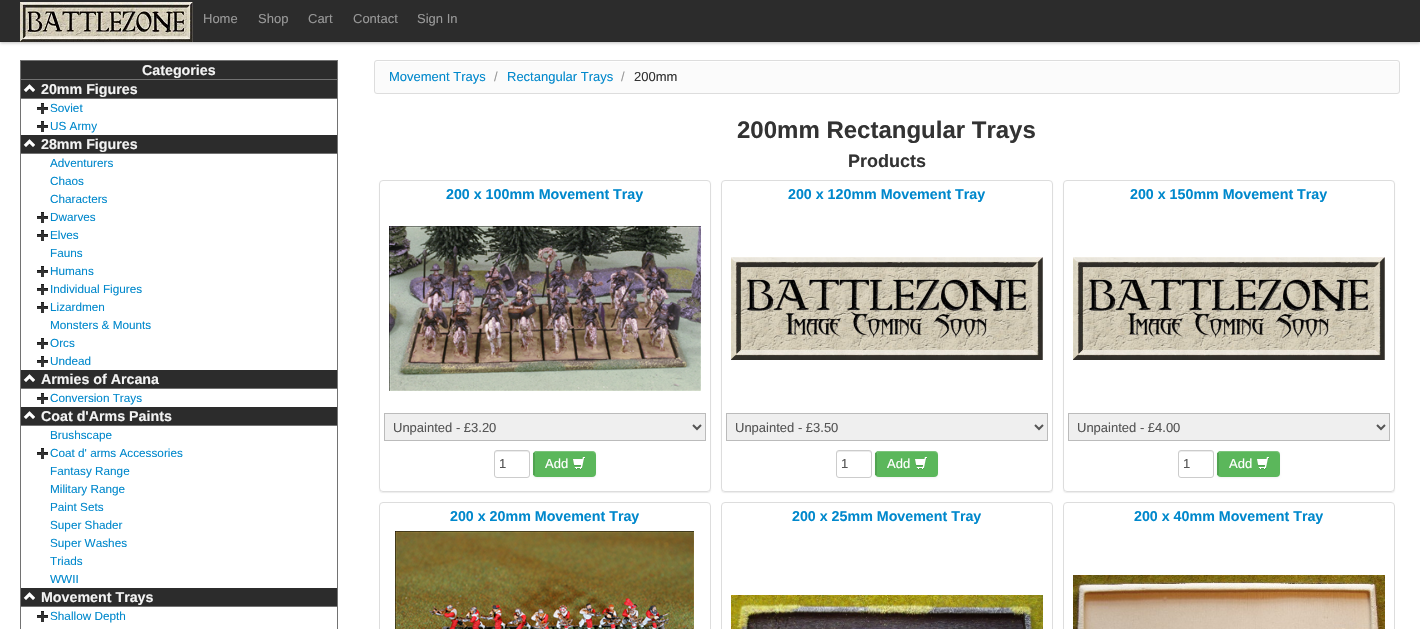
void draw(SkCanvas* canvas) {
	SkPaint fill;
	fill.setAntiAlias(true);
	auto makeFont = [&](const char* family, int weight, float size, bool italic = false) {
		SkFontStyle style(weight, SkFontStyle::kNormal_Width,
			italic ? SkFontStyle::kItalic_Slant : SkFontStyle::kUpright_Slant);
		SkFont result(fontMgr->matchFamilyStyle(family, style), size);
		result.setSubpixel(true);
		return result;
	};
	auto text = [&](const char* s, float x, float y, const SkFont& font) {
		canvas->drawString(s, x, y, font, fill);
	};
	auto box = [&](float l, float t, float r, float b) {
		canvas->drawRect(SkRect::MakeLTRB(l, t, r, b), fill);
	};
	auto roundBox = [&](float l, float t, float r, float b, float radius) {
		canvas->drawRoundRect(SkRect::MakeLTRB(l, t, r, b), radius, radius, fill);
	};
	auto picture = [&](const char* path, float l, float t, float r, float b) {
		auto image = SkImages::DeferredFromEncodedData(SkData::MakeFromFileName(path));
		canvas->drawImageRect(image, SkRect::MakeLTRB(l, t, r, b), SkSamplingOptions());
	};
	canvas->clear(0xFFFFFFFF);
	fill.setColor(0x40000000);
	fill.setMaskFilter(SkMaskFilter::MakeBlur(kNormal_SkBlurStyle, 1.5f));
	canvas->drawRect(SkRect::MakeLTRB(0, 1, 1420, 43), fill);
	fill.setMaskFilter(nullptr);
	fill.setColor(0xFF2C2C2C);
	box(0, 0, 1420, 41);
	fill.setColor(0xFF282828);
	box(0, 41, 1420, 42);
	picture("image0.png", 20, 2, 193, 42);
	fill.setColor(0xFF2C2C2C);
	canvas->drawRect(SkRect::MakeLTRB(20.5f, 60.5f, 337.5f, 79.5f), fill);
	fill.setStyle(SkPaint::kStroke_Style);
	fill.setStrokeWidth(1);
	fill.setColor(0xFF727272);
	canvas->drawRect(SkRect::MakeLTRB(20.5f, 60.5f, 337.5f, 79.5f), fill);
	fill.setStyle(SkPaint::kFill_Style);
	box(337, 80, 338, 629);
	box(20, 80, 21, 629);
	fill.setColor(0xFF2C2C2C);
	box(21, 80, 337, 98);
	fill.setColor(0xFF727272);
	box(21, 98, 337, 99);
	picture("image1.png", 23, 84, 35, 92);
	picture("image2.png", 37, 103, 48, 114);
	picture("image2.png", 37, 121, 48, 132);
	fill.setColor(0xFF2C2C2C);
	box(21, 135, 337, 153);
	fill.setColor(0xFF727272);
	box(21, 153, 337, 154);
	picture("image1.png", 23, 139, 35, 147);
	picture("image2.png", 37, 212, 48, 223);
	picture("image2.png", 37, 230, 48, 241);
	picture("image2.png", 37, 266, 48, 277);
	picture("image2.png", 37, 284, 48, 295);
	picture("image2.png", 37, 302, 48, 313);
	picture("image2.png", 37, 338, 48, 349);
	picture("image2.png", 37, 356, 48, 367);
	fill.setColor(0xFF2C2C2C);
	box(21, 370, 337, 388);
	fill.setColor(0xFF727272);
	box(21, 388, 337, 389);
	picture("image1.png", 23, 374, 35, 382);
	picture("image2.png", 37, 393, 48, 404);
	fill.setColor(0xFF2C2C2C);
	box(21, 407, 337, 425);
	fill.setColor(0xFF727272);
	box(21, 425, 337, 426);
	picture("image1.png", 23, 411, 35, 419);
	picture("image2.png", 37, 448, 48, 459);
	fill.setColor(0xFF2C2C2C);
	box(21, 588, 337, 606);
	fill.setColor(0xFF727272);
	box(21, 606, 337, 607);
	picture("image1.png", 23, 592, 35, 600);
	picture("image2.png", 37, 611, 48, 622);
	fill.setColor(0xFFFBFBFB);
	roundBox(374, 60, 1400, 94, 3);
	fill.setColor(0xFFFFFFFF);
	canvas->drawPath(SkPathBuilder().moveTo(377, 62).lineTo(1398, 62).lineTo(1399, 64).lineTo(1399, 63).cubicTo(1399, 62, 1398, 61, 1397, 61).lineTo(377, 61).cubicTo(376, 61, 375, 62, 375, 63).lineTo(375, 64).cubicTo(375, 63, 376, 62, 377, 62).close().detach(), fill);
	fill.setStyle(SkPaint::kStroke_Style);
	fill.setColor(0xFFDDDDDD);
	canvas->drawRoundRect(SkRect::MakeLTRB(374.5f, 60.5f, 1399.5f, 93.5f), 2.5f, 2.5f, fill);
	canvas->save();
	canvas->clipPath(SkPathBuilder(SkPathFillType::kEvenOdd).moveTo(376, 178).lineTo(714, 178).lineTo(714, 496).lineTo(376, 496).close().moveTo(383, 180).lineTo(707, 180).cubicTo(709, 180, 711, 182, 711, 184).lineTo(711, 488).cubicTo(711, 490, 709, 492, 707, 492).lineTo(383, 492).cubicTo(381, 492, 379, 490, 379, 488).lineTo(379, 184).cubicTo(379, 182, 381, 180, 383, 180).close().detach(), true);
	fill.setStyle(SkPaint::kFill_Style);
	fill.setColor(0x12000000);
	fill.setMaskFilter(SkMaskFilter::MakeBlur(kNormal_SkBlurStyle, 0.5f));
	canvas->drawRoundRect(SkRect::MakeLTRB(379, 181, 711, 493), 4, 4, fill);
	fill.setMaskFilter(nullptr);
	canvas->restore();
	fill.setStyle(SkPaint::kStroke_Style);
	fill.setColor(0xFFDDDDDD);
	canvas->drawRoundRect(SkRect::MakeLTRB(379.5f, 180.5f, 710.5f, 491.5f), 3.5f, 3.5f, fill);
	picture("image3.png", 389, 226, 701, 391);
	fill.setStyle(SkPaint::kFill_Style);
	fill.setColor(0xFFEFEFEF);
	canvas->drawRect(SkRect::MakeLTRB(384.5f, 413.5f, 705.5f, 440.5f), fill);
	fill.setStyle(SkPaint::kStroke_Style);
	fill.setColor(0xFFBBBBBB);
	canvas->drawRect(SkRect::MakeLTRB(384.5f, 413.5f, 705.5f, 440.5f), fill);
	fill.setStrokeWidth(2);
	fill.setColor(0xFF555555);
	canvas->drawPath(SkPathBuilder().moveTo(693, 425).lineTo(697, 429).lineTo(701, 425).detach(), fill);
	fill.setStyle(SkPaint::kFill_Style);
	fill.setColor(0xFFECECEC);
	canvas->drawPath(SkPathBuilder().moveTo(497, 452).lineTo(527, 452).cubicTo(528, 452, 529, 453, 529, 454).cubicTo(529, 449.5f, 526, 451, 522, 451).lineTo(502, 451).cubicTo(498, 451, 495, 449.5f, 495, 454).cubicTo(495, 453, 496, 452, 497, 452).close().detach(), fill);
	fill.setStyle(SkPaint::kStroke_Style);
	fill.setStrokeWidth(1);
	fill.setColor(0xFFCCCCCC);
	canvas->drawRoundRect(SkRect::MakeLTRB(494.5f, 450.5f, 529.5f, 477.5f), 2.5f, 2.5f, fill);
	fill.setStyle(SkPaint::kFill_Style);
	fill.setColor(0x0D000000);
	fill.setMaskFilter(SkMaskFilter::MakeBlur(kNormal_SkBlurStyle, 1));
	canvas->drawRoundRect(SkRect::MakeLTRB(533, 452, 596, 478), 4, 4, fill);
	fill.setMaskFilter(nullptr);
	fill.setColor(0xFF5BB75B);
	roundBox(533, 451, 596, 477, 4);
	fill.setColor(0x33FFFFFF);
	canvas->drawPath(SkPathBuilder().moveTo(537, 452).lineTo(592, 452).cubicTo(594, 452, 596, 454, 596, 456).cubicTo(596, 449, 588, 451, 583, 451).lineTo(546, 451).cubicTo(538, 451, 535, 449, 535, 456).cubicTo(535, 454, 536, 452, 537, 452).close().detach(), fill);
	fill.setColor(0xFF51A351);
	box(533, 453, 535, 475);
	picture("image4.png", 573, 457, 585, 470);
	canvas->save();
	canvas->clipPath(SkPathBuilder(SkPathFillType::kEvenOdd).moveTo(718, 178).lineTo(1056, 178).lineTo(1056, 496).lineTo(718, 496).close().moveTo(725, 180).lineTo(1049, 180).cubicTo(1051, 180, 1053, 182, 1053, 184).lineTo(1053, 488).cubicTo(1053, 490, 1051, 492, 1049, 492).lineTo(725, 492).cubicTo(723, 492, 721, 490, 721, 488).lineTo(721, 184).cubicTo(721, 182, 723, 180, 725, 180).close().detach(), true);
	fill.setColor(0x12000000);
	fill.setMaskFilter(SkMaskFilter::MakeBlur(kNormal_SkBlurStyle, 0.5f));
	canvas->drawRoundRect(SkRect::MakeLTRB(721, 181, 1053, 493), 4, 4, fill);
	fill.setMaskFilter(nullptr);
	canvas->restore();
	fill.setStyle(SkPaint::kStroke_Style);
	fill.setColor(0xFFDDDDDD);
	canvas->drawRoundRect(SkRect::MakeLTRB(721.5f, 180.5f, 1052.5f, 491.5f), 3.5f, 3.5f, fill);
	picture("image5.png", 731, 257, 1043, 360);
	fill.setStyle(SkPaint::kFill_Style);
	fill.setColor(0xFFEFEFEF);
	canvas->drawRect(SkRect::MakeLTRB(726.5f, 413.5f, 1047.5f, 440.5f), fill);
	fill.setStyle(SkPaint::kStroke_Style);
	fill.setColor(0xFFBBBBBB);
	canvas->drawRect(SkRect::MakeLTRB(726.5f, 413.5f, 1047.5f, 440.5f), fill);
	fill.setStrokeWidth(2);
	fill.setColor(0xFF555555);
	canvas->drawPath(SkPathBuilder().moveTo(1035, 425).lineTo(1039, 429).lineTo(1043, 425).detach(), fill);
	fill.setStyle(SkPaint::kFill_Style);
	fill.setColor(0xFFECECEC);
	canvas->drawPath(SkPathBuilder().moveTo(839, 452).lineTo(869, 452).cubicTo(870, 452, 871, 453, 871, 454).cubicTo(871, 449.5f, 868, 451, 864, 451).lineTo(844, 451).cubicTo(840, 451, 837, 449.5f, 837, 454).cubicTo(837, 453, 838, 452, 839, 452).close().detach(), fill);
	fill.setStyle(SkPaint::kStroke_Style);
	fill.setStrokeWidth(1);
	fill.setColor(0xFFCCCCCC);
	canvas->drawRoundRect(SkRect::MakeLTRB(836.5f, 450.5f, 871.5f, 477.5f), 2.5f, 2.5f, fill);
	fill.setStyle(SkPaint::kFill_Style);
	fill.setColor(0x0D000000);
	fill.setMaskFilter(SkMaskFilter::MakeBlur(kNormal_SkBlurStyle, 1));
	canvas->drawRoundRect(SkRect::MakeLTRB(875, 452, 938, 478), 4, 4, fill);
	fill.setMaskFilter(nullptr);
	fill.setColor(0xFF5BB75B);
	roundBox(875, 451, 938, 477, 4);
	fill.setColor(0x33FFFFFF);
	canvas->drawPath(SkPathBuilder().moveTo(879, 452).lineTo(934, 452).cubicTo(936, 452, 938, 454, 938, 456).cubicTo(938, 449, 930, 451, 925, 451).lineTo(888, 451).cubicTo(880, 451, 877, 449, 877, 456).cubicTo(877, 454, 878, 452, 879, 452).close().detach(), fill);
	fill.setColor(0xFF51A351);
	box(875, 453, 877, 475);
	picture("image4.png", 915, 457, 927, 470);
	canvas->save();
	canvas->clipPath(SkPathBuilder(SkPathFillType::kEvenOdd).moveTo(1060, 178).lineTo(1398, 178).lineTo(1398, 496).lineTo(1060, 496).close().moveTo(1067, 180).lineTo(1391, 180).cubicTo(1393, 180, 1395, 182, 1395, 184).lineTo(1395, 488).cubicTo(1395, 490, 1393, 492, 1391, 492).lineTo(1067, 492).cubicTo(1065, 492, 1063, 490, 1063, 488).lineTo(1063, 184).cubicTo(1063, 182, 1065, 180, 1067, 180).close().detach(), true);
	fill.setColor(0x12000000);
	fill.setMaskFilter(SkMaskFilter::MakeBlur(kNormal_SkBlurStyle, 0.5f));
	canvas->drawRoundRect(SkRect::MakeLTRB(1063, 181, 1395, 493), 4, 4, fill);
	fill.setMaskFilter(nullptr);
	canvas->restore();
	fill.setStyle(SkPaint::kStroke_Style);
	fill.setColor(0xFFDDDDDD);
	canvas->drawRoundRect(SkRect::MakeLTRB(1063.5f, 180.5f, 1394.5f, 491.5f), 3.5f, 3.5f, fill);
	picture("image6.png", 1073, 257, 1385, 360);
	fill.setStyle(SkPaint::kFill_Style);
	fill.setColor(0xFFEFEFEF);
	canvas->drawRect(SkRect::MakeLTRB(1068.5f, 413.5f, 1389.5f, 440.5f), fill);
	fill.setStyle(SkPaint::kStroke_Style);
	fill.setColor(0xFFBBBBBB);
	canvas->drawRect(SkRect::MakeLTRB(1068.5f, 413.5f, 1389.5f, 440.5f), fill);
	fill.setStrokeWidth(2);
	fill.setColor(0xFF555555);
	canvas->drawPath(SkPathBuilder().moveTo(1377, 425).lineTo(1381, 429).lineTo(1385, 425).detach(), fill);
	fill.setStyle(SkPaint::kFill_Style);
	fill.setColor(0xFFECECEC);
	canvas->drawPath(SkPathBuilder().moveTo(1181, 452).lineTo(1211, 452).cubicTo(1212, 452, 1213, 453, 1213, 454).cubicTo(1213, 449.5f, 1210, 451, 1206, 451).lineTo(1186, 451).cubicTo(1182, 451, 1179, 449.5f, 1179, 454).cubicTo(1179, 453, 1180, 452, 1181, 452).close().detach(), fill);
	fill.setStyle(SkPaint::kStroke_Style);
	fill.setStrokeWidth(1);
	fill.setColor(0xFFCCCCCC);
	canvas->drawRoundRect(SkRect::MakeLTRB(1178.5f, 450.5f, 1213.5f, 477.5f), 2.5f, 2.5f, fill);
	fill.setStyle(SkPaint::kFill_Style);
	fill.setColor(0x0D000000);
	fill.setMaskFilter(SkMaskFilter::MakeBlur(kNormal_SkBlurStyle, 1));
	canvas->drawRoundRect(SkRect::MakeLTRB(1217, 452, 1280, 478), 4, 4, fill);
	fill.setMaskFilter(nullptr);
	fill.setColor(0xFF5BB75B);
	roundBox(1217, 451, 1280, 477, 4);
	fill.setColor(0x33FFFFFF);
	canvas->drawPath(SkPathBuilder().moveTo(1221, 452).lineTo(1276, 452).cubicTo(1278, 452, 1280, 454, 1280, 456).cubicTo(1280, 449, 1272, 451, 1267, 451).lineTo(1230, 451).cubicTo(1222, 451, 1219, 449, 1219, 456).cubicTo(1219, 454, 1220, 452, 1221, 452).close().detach(), fill);
	fill.setColor(0xFF51A351);
	box(1217, 453, 1219, 475);
	picture("image4.png", 1257, 457, 1269, 470);
	fill.setStyle(SkPaint::kStroke_Style);
	fill.setColor(0xFFDDDDDD);
	canvas->drawRoundRect(SkRect::MakeLTRB(379.5f, 502.5f, 710.5f, 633.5f), 3.5f, 3.5f, fill);
	picture("image7.png", 395, 531, 694, 629);
	canvas->drawRoundRect(SkRect::MakeLTRB(721.5f, 502.5f, 1052.5f, 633.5f), 3.5f, 3.5f, fill);
	picture("image8.png", 731, 595, 1043, 629);
	canvas->drawRoundRect(SkRect::MakeLTRB(1063.5f, 502.5f, 1394.5f, 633.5f), 3.5f, 3.5f, fill);
	picture("image9.png", 1073, 575, 1385, 629);
	auto font1 = makeFont("Liberation Sans", 400, 13);
	fill.setStyle(SkPaint::kFill_Style);
	fill.setColor(0xFF999999);
	text("Home", 203, 23, font1);
	text("Shop", 258, 23, font1);
	text("Cart", 308, 23, font1);
	text("Contact", 353, 23, font1);
	text("Sign In", 417, 23, font1);
	auto font2 = makeFont("Liberation Sans", 700, 14.25f);
	fill.setColor(0xFFF3F3F3);
	text("Categories", 142, 75, font2);
	text("20mm Figures", 41, 94, font2);
	auto font3 = makeFont("Liberation Sans", 400, 11.75f);
	fill.setColor(0xFF0088CC);
	text("Soviet", 50, 112, font3);
	text("US Army", 50, 130, font3);
	fill.setColor(0xFFF3F3F3);
	text("28mm Figures", 41, 149, font2);
	fill.setColor(0xFF0088CC);
	text("Adventurers", 50, 167, font3);
	text("Chaos", 50, 185, font3);
	text("Characters", 50, 203, font3);
	text("Dwarves", 50, 221, font3);
	text("Elves", 50, 239, font3);
	text("Fauns", 50, 257, font3);
	text("Humans", 50, 275, font3);
	text("Individual Figures", 50, 293, font3);
	text("Lizardmen", 50, 311, font3);
	text("Monsters & Mounts", 50, 329, font3);
	text("Orcs", 50, 347, font3);
	text("Undead", 50, 365, font3);
	fill.setColor(0xFFF3F3F3);
	text("Armies of Arcana", 41, 384, font2);
	fill.setColor(0xFF0088CC);
	text("Conversion Trays", 50, 402, font3);
	fill.setColor(0xFFF3F3F3);
	text("Coat d'Arms Paints", 41, 421, font2);
	fill.setColor(0xFF0088CC);
	text("Brushscape", 50, 439, font3);
	text("Coat d' arms Accessories", 50, 457, font3);
	text("Fantasy Range", 50, 475, font3);
	text("Military Range", 50, 493, font3);
	text("Paint Sets", 50, 511, font3);
	text("Super Shader", 50, 529, font3);
	text("Super Washes", 50, 547, font3);
	text("Triads", 50, 565, font3);
	text("WWII", 50, 583, font3);
	fill.setColor(0xFFF3F3F3);
	text("Movement Trays", 41, 602, font2);
	fill.setColor(0xFF0088CC);
	text("Shallow Depth", 50, 620, font3);
	text("Movement Trays", 389, 81, font1);
	fill.setColor(0xFF999999);
	text("/", 494, 81, font1);
	fill.setColor(0xFF0088CC);
	text("Rectangular Trays", 507, 81, font1);
	fill.setColor(0xFF999999);
	text("/", 621, 81, font1);
	fill.setColor(0xFF333333);
	text("200mm", 634, 81, font1);
	auto font4 = makeFont("Liberation Sans", 700, 24);
	text("200mm Rectangular Trays", 737, 138, font4);
	auto font5 = makeFont("Liberation Sans", 700, 18);
	text("Products", 848, 167, font5);
	fill.setColor(0xFF0088CC);
	text("200 x 100mm Movement Tray", 446, 199, font2);
	fill.setColor(0xFF555555);
	text("Unpainted - £3.20", 393, 432, font1);
	text("1", 499, 468, font1);
	fill.setColor(0xFFFFFFFF);
	text("Add", 545, 468, font1);
	fill.setColor(0xFF0088CC);
	text("200 x 120mm Movement Tray", 788, 199, font2);
	fill.setColor(0xFF555555);
	text("Unpainted - £3.50", 735, 432, font1);
	text("1", 841, 468, font1);
	fill.setColor(0xFFFFFFFF);
	text("Add", 887, 468, font1);
	fill.setColor(0xFF0088CC);
	text("200 x 150mm Movement Tray", 1130, 199, font2);
	fill.setColor(0xFF555555);
	text("Unpainted - £4.00", 1077, 432, font1);
	text("1", 1183, 468, font1);
	fill.setColor(0xFFFFFFFF);
	text("Add", 1229, 468, font1);
	fill.setColor(0xFF0088CC);
	text("200 x 20mm Movement Tray", 450, 521, font2);
	text("200 x 25mm Movement Tray", 792, 521, font2);
	text("200 x 40mm Movement Tray", 1134, 521, font2);
}
